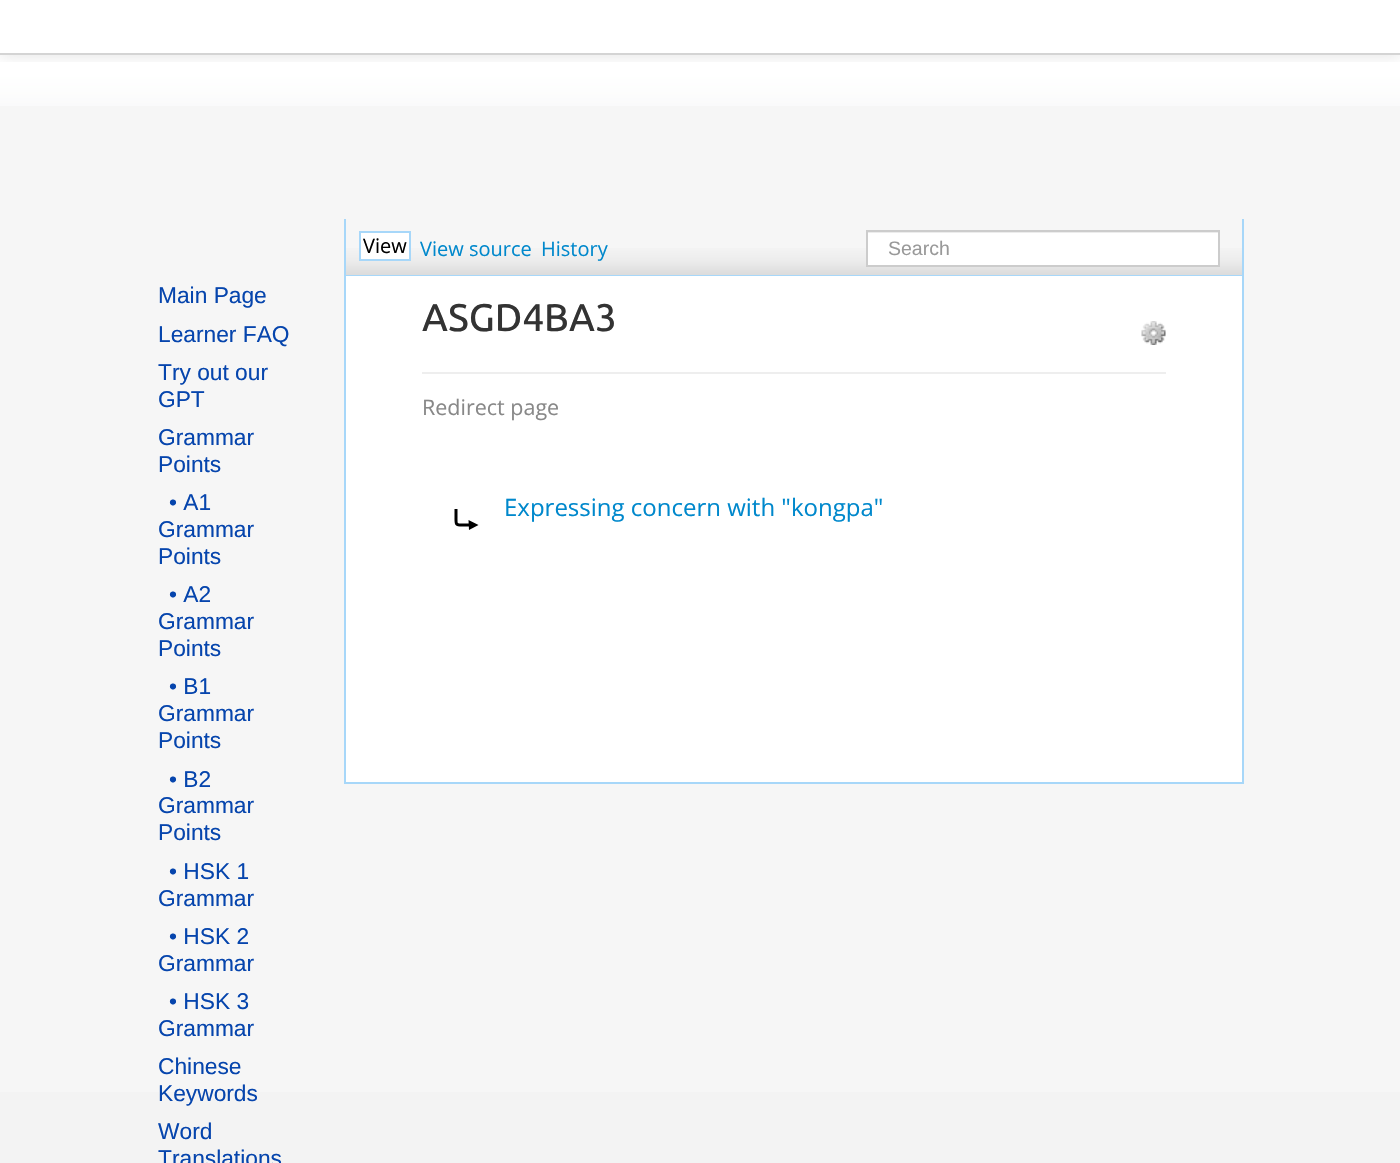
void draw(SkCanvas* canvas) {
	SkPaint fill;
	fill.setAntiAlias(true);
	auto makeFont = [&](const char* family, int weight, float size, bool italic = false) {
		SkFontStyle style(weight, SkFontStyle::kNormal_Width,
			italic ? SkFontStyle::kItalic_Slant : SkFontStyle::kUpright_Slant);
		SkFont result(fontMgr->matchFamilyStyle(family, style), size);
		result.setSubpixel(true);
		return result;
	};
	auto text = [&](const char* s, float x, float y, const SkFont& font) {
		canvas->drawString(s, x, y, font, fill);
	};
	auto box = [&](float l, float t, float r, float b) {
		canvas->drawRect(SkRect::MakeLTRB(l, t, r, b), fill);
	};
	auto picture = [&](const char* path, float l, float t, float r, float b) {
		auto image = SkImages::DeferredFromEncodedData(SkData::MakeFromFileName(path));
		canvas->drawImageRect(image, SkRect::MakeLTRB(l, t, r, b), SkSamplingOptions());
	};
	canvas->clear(0xFFF3F3F3);
	fill.setColor(0xFFF6F6F6);
	box(0, 106, 1400, 1092);
	picture("image0.png", 0, 0, 1400, 106);
	canvas->save();
	canvas->clipRect(SkRect::MakeLTRB(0, 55, 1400, 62));
	fill.setColor(0x1A000000);
	fill.setMaskFilter(SkMaskFilter::MakeBlur(kNormal_SkBlurStyle, 7.5f));
	canvas->drawRect(SkRect::MakeLTRB(0, -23, 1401, 56), fill);
	fill.setMaskFilter(nullptr);
	canvas->restore();
	fill.setColor(0xFFD4D4D4);
	box(0, 53, 1400, 55);
	{
		const SkColor colors[] = {0xFFF7F8F8, 0xFFF6F6F6, 0xFFF4F4F4, 0xFFECECEC, 0xFFDBDBDB};
		const float stops[] = {0, 0.25f, 0.5f, 0.75f, 1};
		const SkPoint ends[] = {{794, 219}, {794, 275}};
		fill.setShader(SkGradientShader::MakeLinear(ends, colors, stops, 5, SkTileMode::kClamp));
		fill.setAlpha(255);
	}
	box(346, 248, 1242, 275);
	fill.setShader(nullptr);
	fill.setColor(0xFFA7D7F9);
	box(1242, 219, 1244, 783);
	box(344, 275, 1244, 276);
	box(344, 219, 346, 276);
	fill.setColor(0xFFFFFFFF);
	canvas->drawRect(SkRect::MakeLTRB(360, 232, 410, 260), fill);
	fill.setStyle(SkPaint::kStroke_Style);
	fill.setStrokeWidth(2);
	fill.setColor(0xFFA7D7F9);
	canvas->drawRect(SkRect::MakeLTRB(360, 232, 410, 260), fill);
	fill.setStyle(SkPaint::kFill_Style);
	fill.setColor(0xFFFFFFFF);
	box(868, 233, 1218, 265);
	fill.setColor(0xFFECECEC);
	box(867, 232, 1218, 233);
	fill.setStyle(SkPaint::kStroke_Style);
	fill.setColor(0xFFCCCCCC);
	canvas->drawRect(SkRect::MakeLTRB(867, 231, 1219, 266), fill);
	fill.setStyle(SkPaint::kFill_Style);
	fill.setColor(0xFFFFFFFF);
	box(346, 276, 1242, 782);
	fill.setColor(0xFFA7D7F9);
	box(344, 782, 1244, 784);
	box(344, 276, 346, 783);
	fill.setColor(0xFFEEEEEE);
	box(422, 372, 1166, 374);
	picture("image1.png", 1141, 321, 1166, 345);
	fill.setStyle(SkPaint::kStroke_Style);
	fill.setStrokeWidth(3);
	fill.setColor(0xFF000000);
	canvas->drawPath(SkPathBuilder().moveTo(456, 509).lineTo(456, 518).cubicTo(456, 524, 455.5f, 525, 462, 525).lineTo(472.5f, 525).detach(), fill);
	fill.setStyle(SkPaint::kFill_Style);
	canvas->drawPath(SkPathBuilder().moveTo(468.5f, 520).lineTo(469, 530).lineTo(478.5f, 525).close().detach(), fill);
	auto font1 = makeFont("Open Sans", 400, 20);
	text("View", 363, 253, font1);
	fill.setColor(0xFF0088CC);
	text("View source", 420, 256, font1);
	text("History", 541, 256, font1);
	auto font2 = makeFont("Liberation Sans", 400, 19.5f);
	fill.setColor(0xFF999999);
	text("Search", 888, 255, font2);
	auto font3 = makeFont("Liberation Sans", 400, 22.75f);
	fill.setColor(0xFF0645AD);
	text("Main Page", 158, 303, font3);
	text("Learner FAQ", 158, 342, font3);
	text("Try out our", 158, 380, font3);
	text("GPT", 158, 407, font3);
	text("Grammar", 158, 445, font3);
	text("Points", 158, 472, font3);
	text("• A1", 169, 510, font3);
	text("Grammar", 158, 537, font3);
	text("Points", 158, 564, font3);
	text("• A2", 169, 602, font3);
	text("Grammar", 158, 629, font3);
	text("Points", 158, 656, font3);
	text("• B1", 169, 694, font3);
	text("Grammar", 158, 721, font3);
	text("Points", 158, 748, font3);
	text("• B2", 169, 787, font3);
	text("Grammar", 158, 813, font3);
	text("Points", 158, 840, font3);
	text("• HSK 1", 169, 879, font3);
	text("Grammar", 158, 906, font3);
	text("• HSK 2", 169, 944, font3);
	text("Grammar", 158, 971, font3);
	text("• HSK 3", 169, 1009, font3);
	text("Grammar", 158, 1036, font3);
	text("Chinese", 158, 1074, font3);
	text("Keywords", 158, 1101, font3);
	text("Word", 158, 1139, font3);
	text("Translations", 158, 1166, font3);
	auto font4 = makeFont("Ubuntu", 500, 38.5f);
	fill.setColor(0xFF333333);
	text("ASGD4BA3", 422, 331, font4);
	auto font5 = makeFont("Open Sans", 400, 21.5f);
	fill.setColor(0xFF888888);
	text("Redirect page", 422, 415, font5);
	auto font6 = makeFont("Open Sans", 400, 24);
	fill.setColor(0xFF0088CC);
	text("Expressing concern with \"kongpa\"", 504, 516, font6);
}
